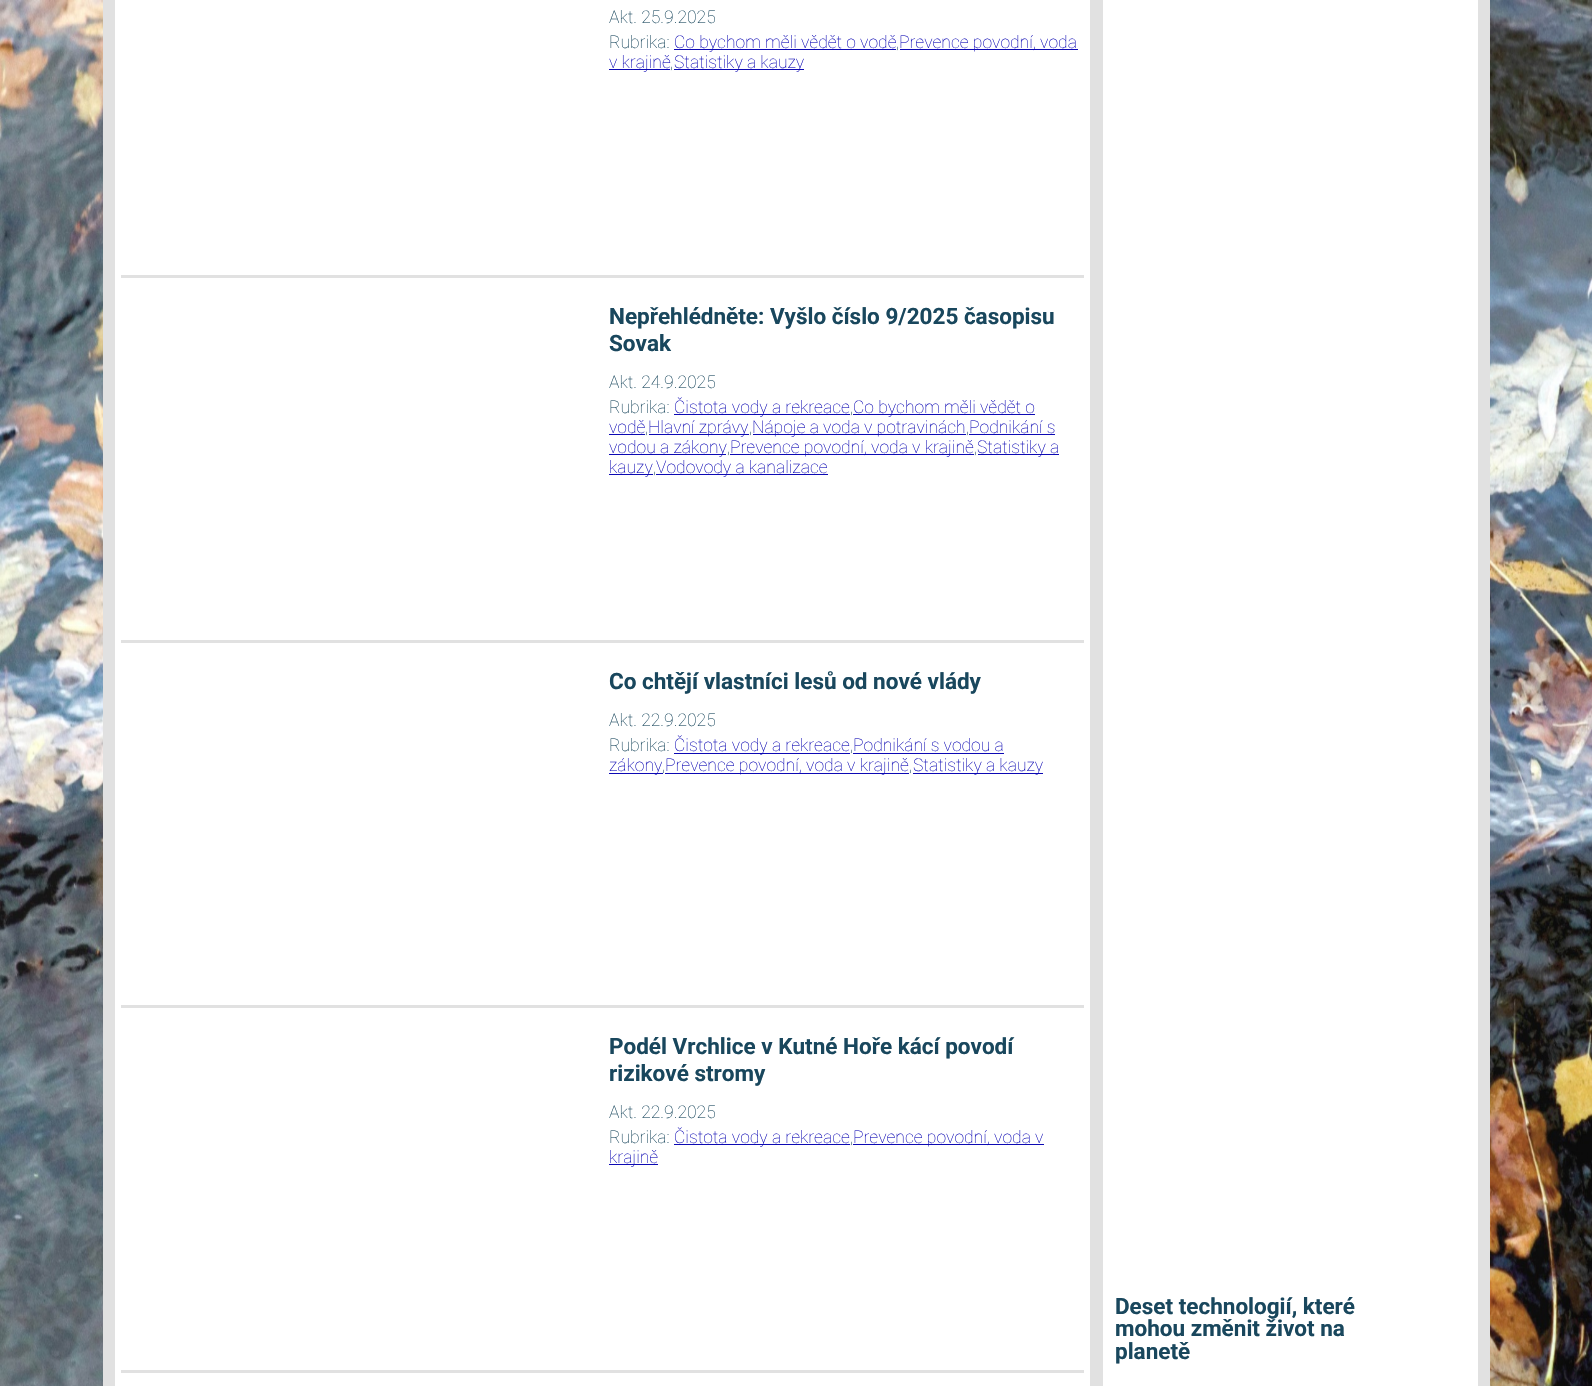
void draw(SkCanvas* canvas) {
	SkPaint fill;
	fill.setAntiAlias(true);
	auto makeFont = [&](const char* family, int weight, float size, bool italic = false) {
		SkFontStyle style(weight, SkFontStyle::kNormal_Width,
			italic ? SkFontStyle::kItalic_Slant : SkFontStyle::kUpright_Slant);
		SkFont result(fontMgr->matchFamilyStyle(family, style), size);
		result.setSubpixel(true);
		return result;
	};
	auto text = [&](const char* s, float x, float y, const SkFont& font) {
		canvas->drawString(s, x, y, font, fill);
	};
	auto box = [&](float l, float t, float r, float b) {
		canvas->drawRect(SkRect::MakeLTRB(l, t, r, b), fill);
	};
	auto picture = [&](const char* path, float l, float t, float r, float b) {
		auto image = SkImages::DeferredFromEncodedData(SkData::MakeFromFileName(path));
		canvas->drawImageRect(image, SkRect::MakeLTRB(l, t, r, b), SkSamplingOptions());
	};
	canvas->clear(0xFFFFFFFF);
	picture("image0.png", 0, 0, 1592, 1386);
	fill.setColor(0xFFE1E1E1);
	box(103, 0, 1490, 1386);
	fill.setColor(0xFFFFFFFF);
	box(115, 0, 1090, 1386);
	fill.setColor(0xFF0D09B4);
	box(674, 49, 896, 50);
	box(900, 49, 1078, 50);
	box(609, 69, 670, 70);
	box(674, 69, 804, 70);
	fill.setColor(0xFFE1E1E1);
	box(121, 275, 1084, 278);
	fill.setColor(0xFF0D09B4);
	box(674, 414, 850, 415);
	box(853, 414, 1035, 415);
	box(609, 434, 645, 435);
	box(649, 434, 749, 435);
	box(753, 434, 966, 435);
	box(969, 434, 1055, 435);
	box(609, 454, 726, 455);
	box(730, 454, 974, 455);
	box(978, 454, 1059, 455);
	box(609, 474, 653, 475);
	box(656, 474, 828, 475);
	fill.setColor(0xFFE1E1E1);
	box(121, 640, 1084, 643);
	fill.setColor(0xFF0D09B4);
	box(674, 753, 850, 754);
	box(853, 753, 1004, 754);
	box(609, 773, 663, 774);
	box(665, 773, 909, 774);
	box(913, 773, 1043, 774);
	fill.setColor(0xFFE1E1E1);
	box(121, 1005, 1084, 1008);
	fill.setColor(0xFF0D09B4);
	box(674, 1144, 850, 1145);
	box(853, 1144, 1044, 1145);
	box(609, 1164, 658, 1165);
	fill.setColor(0xFFE1E1E1);
	box(121, 1370, 1084, 1373);
	fill.setColor(0xFFFFFFFF);
	box(1103, 0, 1478, 1386);
	auto font1 = makeFont("Roboto", 100, 17.5f);
	fill.setColor(0xFF19475D);
	text("Akt. 25.9.2025", 609, 23, font1);
	text("Rubrika:", 609, 48, font1);
	fill.setColor(0xFF0D09B4);
	text("Co bychom měli vědět o vodě", 674, 48, font1);
	fill.setColor(0xFF19475D);
	text(",", 896, 48, font1);
	fill.setColor(0xFF0D09B4);
	text("Prevence povodní, voda", 899, 48, font1);
	text("v krajině", 609, 68, font1);
	fill.setColor(0xFF19475D);
	text(",", 670, 68, font1);
	fill.setColor(0xFF0D09B4);
	text("Statistiky a kauzy", 674, 68, font1);
	auto font2 = makeFont("Roboto", 700, 22.5f);
	fill.setColor(0xFF19475D);
	text("Nepřehlédněte: Vyšlo číslo 9/2025 časopisu", 609, 324, font2);
	text("Sovak", 609, 351, font2);
	text("Akt. 24.9.2025", 609, 388, font1);
	text("Rubrika:", 609, 413, font1);
	fill.setColor(0xFF0D09B4);
	text("Čistota vody a rekreace", 674, 413, font1);
	fill.setColor(0xFF19475D);
	text(",", 850, 413, font1);
	fill.setColor(0xFF0D09B4);
	text("Co bychom měli vědět o", 853, 413, font1);
	text("vodě", 609, 433, font1);
	fill.setColor(0xFF19475D);
	text(",", 645, 433, font1);
	fill.setColor(0xFF0D09B4);
	text("Hlavní zprávy", 648, 433, font1);
	fill.setColor(0xFF19475D);
	text(",", 749, 433, font1);
	fill.setColor(0xFF0D09B4);
	text("Nápoje a voda v potravinách", 752, 433, font1);
	fill.setColor(0xFF19475D);
	text(",", 966, 433, font1);
	fill.setColor(0xFF0D09B4);
	text("Podnikání s", 969, 433, font1);
	text("vodou a zákony", 609, 453, font1);
	fill.setColor(0xFF19475D);
	text(",", 727, 453, font1);
	fill.setColor(0xFF0D09B4);
	text("Prevence povodní, voda v krajině", 730, 453, font1);
	fill.setColor(0xFF19475D);
	text(",", 974, 453, font1);
	fill.setColor(0xFF0D09B4);
	text("Statistiky a", 977, 453, font1);
	text("kauzy", 609, 473, font1);
	fill.setColor(0xFF19475D);
	text(",", 653, 473, font1);
	fill.setColor(0xFF0D09B4);
	text("Vodovody a kanalizace", 656, 473, font1);
	fill.setColor(0xFF19475D);
	text("Co chtějí vlastníci lesů od nové vlády", 609, 689, font2);
	text("Akt. 22.9.2025", 609, 726, font1);
	text("Rubrika:", 609, 751, font1);
	fill.setColor(0xFF0D09B4);
	text("Čistota vody a rekreace", 674, 751, font1);
	fill.setColor(0xFF19475D);
	text(",", 850, 751, font1);
	fill.setColor(0xFF0D09B4);
	text("Podnikání s vodou a", 853, 751, font1);
	text("zákony", 609, 771, font1);
	fill.setColor(0xFF19475D);
	text(",", 662, 771, font1);
	fill.setColor(0xFF0D09B4);
	text("Prevence povodní, voda v krajině", 665, 771, font1);
	fill.setColor(0xFF19475D);
	text(",", 909, 771, font1);
	fill.setColor(0xFF0D09B4);
	text("Statistiky a kauzy", 913, 771, font1);
	fill.setColor(0xFF19475D);
	text("Podél Vrchlice v Kutné Hoře kácí povodí", 609, 1054, font2);
	text("rizikové stromy", 609, 1081, font2);
	text("Akt. 22.9.2025", 609, 1118, font1);
	text("Rubrika:", 609, 1143, font1);
	fill.setColor(0xFF0D09B4);
	text("Čistota vody a rekreace", 674, 1143, font1);
	fill.setColor(0xFF19475D);
	text(",", 850, 1143, font1);
	fill.setColor(0xFF0D09B4);
	text("Prevence povodní, voda v", 853, 1143, font1);
	text("krajině", 609, 1163, font1);
	fill.setColor(0xFF19475D);
	text("Deset technologií, které", 1115, 1314, font2);
	text("mohou změnit život na", 1115, 1336, font2);
	text("planetě", 1115, 1359, font2);
}
